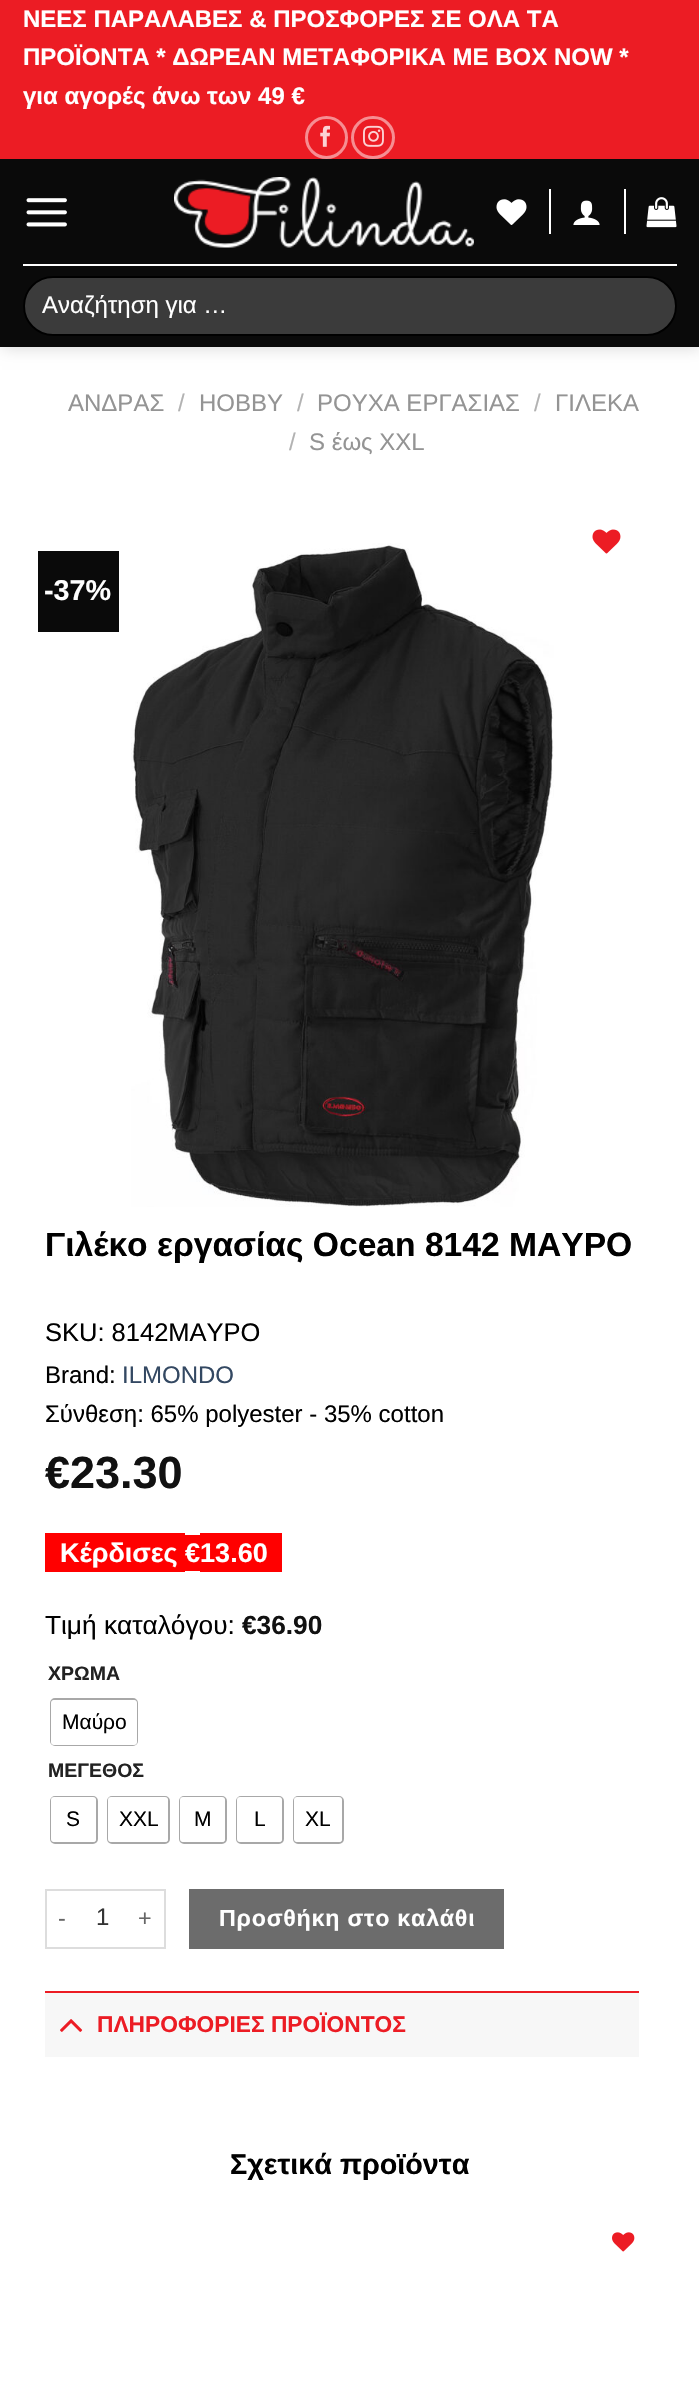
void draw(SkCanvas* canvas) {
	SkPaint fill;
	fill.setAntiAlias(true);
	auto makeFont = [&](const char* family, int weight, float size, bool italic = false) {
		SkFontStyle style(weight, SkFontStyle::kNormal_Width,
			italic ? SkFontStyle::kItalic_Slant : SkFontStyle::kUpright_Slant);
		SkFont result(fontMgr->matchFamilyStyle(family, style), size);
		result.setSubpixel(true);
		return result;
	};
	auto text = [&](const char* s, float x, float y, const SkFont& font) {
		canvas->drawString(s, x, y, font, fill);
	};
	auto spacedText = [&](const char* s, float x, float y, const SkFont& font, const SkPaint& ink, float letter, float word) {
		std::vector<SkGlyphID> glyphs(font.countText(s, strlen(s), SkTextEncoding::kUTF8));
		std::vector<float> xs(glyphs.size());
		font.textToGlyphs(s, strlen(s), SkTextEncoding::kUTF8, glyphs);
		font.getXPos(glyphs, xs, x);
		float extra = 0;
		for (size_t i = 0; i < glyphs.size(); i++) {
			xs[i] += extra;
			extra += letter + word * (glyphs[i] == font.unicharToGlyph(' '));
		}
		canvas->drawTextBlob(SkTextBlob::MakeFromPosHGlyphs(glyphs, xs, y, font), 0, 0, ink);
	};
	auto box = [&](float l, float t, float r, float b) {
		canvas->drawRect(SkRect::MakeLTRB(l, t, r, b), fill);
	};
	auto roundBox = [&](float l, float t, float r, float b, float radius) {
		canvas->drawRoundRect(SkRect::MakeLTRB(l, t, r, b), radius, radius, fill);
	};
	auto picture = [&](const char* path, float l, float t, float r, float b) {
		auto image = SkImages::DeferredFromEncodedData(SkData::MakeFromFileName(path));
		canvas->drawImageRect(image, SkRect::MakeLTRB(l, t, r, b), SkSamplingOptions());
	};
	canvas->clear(0xFFFFFFFF);
	fill.setColor(0x26000000);
	fill.setMaskFilter(SkMaskFilter::MakeBlur(kNormal_SkBlurStyle, 7.5f));
	canvas->drawRect(SkRect::MakeLTRB(2, 2, 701, 348), fill);
	fill.setMaskFilter(nullptr);
	fill.setColor(0xFFEC1C24);
	box(0, 0, 699, 159);
	fill.setStyle(SkPaint::kStroke_Style);
	fill.setStrokeWidth(3);
	fill.setColor(0xFFF68E92);
	canvas->drawCircle(326.5f, 137.5f, 20, fill);
	picture("image0.png", 320, 125, 330, 147);
	canvas->drawRoundRect(SkRect::MakeLTRB(352.5f, 117.5f, 393.5f, 157.5f), 20, 20, fill);
	picture("image1.png", 363, 125, 384, 147);
	fill.setStyle(SkPaint::kFill_Style);
	fill.setColor(0xFF0A0A0A);
	box(0, 159, 699, 347);
	picture("image2.png", 26, 198, 67, 227);
	picture("image3.png", 174, 177, 474, 248);
	picture("image4.png", 496, 199, 527, 225);
	fill.setColor(0xFFFFFFFF);
	box(549, 189, 551, 234);
	picture("image5.png", 573, 200, 600, 225);
	box(624, 189, 626, 234);
	picture("image6.png", 646, 197, 677, 228);
	box(23, 264, 677, 266);
	fill.setColor(0xFF3B3B3B);
	canvas->drawRoundRect(SkRect::MakeLTRB(24, 277, 676, 335), 29, 29, fill);
	fill.setStyle(SkPaint::kStroke_Style);
	fill.setStrokeWidth(2);
	fill.setColor(0xFF000000);
	canvas->drawRoundRect(SkRect::MakeLTRB(24, 277, 676, 335), 29, 29, fill);
	fill.setStyle(SkPaint::kFill_Style);
	fill.setColor(0xFF0A0A0A);
	box(38, 551, 119, 632);
	picture("image7.png", 131, 543, 554, 1207);
	picture("image8.png", 592, 529, 621, 554);
	fill.setColor(0xFFFF0000);
	box(45, 1533, 185, 1572);
	box(185, 1535, 200, 1571);
	box(200, 1533, 282, 1572);
	fill.setStyle(SkPaint::kStroke_Style);
	fill.setColor(0xFFA8A8A8);
	canvas->drawRoundRect(SkRect::MakeLTRB(51, 1699, 137, 1745), 4, 4, fill);
	fill.setStyle(SkPaint::kFill_Style);
	fill.setColor(0xFFFFFFFF);
	roundBox(51, 1700, 137, 1745, 3);
	fill.setStyle(SkPaint::kStroke_Style);
	fill.setColor(0xFFA8A8A8);
	canvas->drawRoundRect(SkRect::MakeLTRB(51, 1797, 97, 1843), 4, 4, fill);
	fill.setStyle(SkPaint::kFill_Style);
	fill.setColor(0xFFFFFFFF);
	roundBox(51, 1797, 96, 1842, 3);
	fill.setStyle(SkPaint::kStroke_Style);
	fill.setColor(0xFFA8A8A8);
	canvas->drawRoundRect(SkRect::MakeLTRB(108, 1797, 169, 1843), 4, 4, fill);
	fill.setStyle(SkPaint::kFill_Style);
	fill.setColor(0xFFFFFFFF);
	roundBox(108, 1797, 168, 1842, 3);
	fill.setStyle(SkPaint::kStroke_Style);
	fill.setColor(0xFFA8A8A8);
	canvas->drawRoundRect(SkRect::MakeLTRB(180, 1797, 226, 1843), 4, 4, fill);
	fill.setStyle(SkPaint::kFill_Style);
	fill.setColor(0xFFFFFFFF);
	roundBox(180, 1797, 225, 1842, 3);
	fill.setStyle(SkPaint::kStroke_Style);
	fill.setColor(0xFFA8A8A8);
	canvas->drawRoundRect(SkRect::MakeLTRB(237, 1797, 283, 1843), 4, 4, fill);
	fill.setStyle(SkPaint::kFill_Style);
	fill.setColor(0xFFFFFFFF);
	roundBox(237, 1797, 282, 1842, 3);
	fill.setStyle(SkPaint::kStroke_Style);
	fill.setColor(0xFFA8A8A8);
	canvas->drawRoundRect(SkRect::MakeLTRB(294, 1797, 343, 1843), 4, 4, fill);
	fill.setStyle(SkPaint::kFill_Style);
	fill.setColor(0xFFFFFFFF);
	roundBox(294, 1797, 342, 1842, 3);
	fill.setColor(0xFFDDDDDD);
	box(45, 1889, 165, 1891);
	box(45, 1947, 126, 1949);
	box(45, 1889, 47, 1949);
	box(164, 1889, 166, 1949);
	box(126, 1947, 165, 1949);
	fill.setColor(0xFF6C6C6C);
	box(189, 1889, 504, 1949);
	fill.setColor(0xFFF7F7F7);
	box(45, 1993, 639, 2057);
	fill.setColor(0xFFEC1C24);
	box(45, 1991, 639, 1993);
	picture("image9.png", 60, 2019, 83, 2032);
	picture("image10.png", 612, 2232, 635, 2252);
	auto font1 = makeFont("Liberation Sans", 700, 24);
	fill.setColor(0xFFFFFFFF);
	text("ΝΕΕΣ ΠΑΡΑΛΑΒΕΣ & ΠΡΟΣΦΟΡΕΣ ΣΕ ΟΛΑ ΤΑ", 23, 27, font1);
	text("ΠΡΟΪΟΝΤΑ * ΔΩΡΕΑΝ ΜΕΤΑΦΟΡΙΚΑ ΜΕ BOX NOW *", 23, 65, font1);
	text("για αγορές άνω των 49 €", 23, 104, font1);
	auto font2 = makeFont("Liberation Sans", 400, 24);
	text("Αναζήτηση για …", 42, 313, font2);
	fill.setColor(0xFF949494);
	text("ΑΝΔΡΑΣ", 68, 411, font2);
	fill.setColor(0xFFB2B2B2);
	text("/", 178, 411, font2);
	fill.setColor(0xFF949494);
	text("HOBBY", 199, 411, font2);
	fill.setColor(0xFFB2B2B2);
	text("/", 297, 411, font2);
	fill.setColor(0xFF949494);
	text("ΡΟΥΧΑ ΕΡΓΑΣΙΑΣ", 317, 411, font2);
	fill.setColor(0xFFB2B2B2);
	text("/", 534, 411, font2);
	fill.setColor(0xFF949494);
	text("ΓΙΛΕΚΑ", 555, 411, font2);
	fill.setColor(0xFFB2B2B2);
	text("/", 289, 450, font2);
	fill.setColor(0xFF949494);
	text("S έως XXL", 309, 450, font2);
	auto font3 = makeFont("Liberation Sans", 700, 28.75f);
	fill.setColor(0xFFFFFFFF);
	text("-37%", 44, 600, font3);
	auto font4 = makeFont("Liberation Sans", 700, 33.6f);
	fill.setColor(0xFF000000);
	text("Γιλέκο εργασίας Ocean 8142 ΜΑΥΡΟ", 45, 1256, font4);
	auto font5 = makeFont("Liberation Sans", 400, 25.5f);
	text("SKU: 8142ΜΑΥΡΟ", 45, 1341, font5);
	text("Brand:", 45, 1383, font2);
	fill.setColor(0xFF334862);
	text("ILMONDO", 122, 1383, font2);
	fill.setColor(0xFF000000);
	text("Σύνθεση: 65% polyester - 35% cotton", 45, 1422, font2);
	auto font6 = makeFont("Liberation Sans", 700, 45);
	fill.setColor(0xFF111111);
	text("€23.30", 45, 1488, font6);
	auto font7 = makeFont("Liberation Sans", 700, 27);
	fill.setColor(0xFFFFFFFF);
	text("Κέρδισες €13.60", 60, 1562, font7);
	auto font8 = makeFont("Liberation Sans", 400, 26.25f);
	fill.setColor(0xFF000000);
	text("Τιμή καταλόγου:", 45, 1634, font8);
	auto font9 = makeFont("Liberation Sans", 700, 26.25f);
	fill.setColor(0xFF111111);
	text("€36.90", 242, 1634, font9);
	auto font10 = makeFont("Liberation Sans", 700, 19.5f);
	fill.setColor(0xFF222222);
	text("ΧΡΩΜΑ", 48, 1680, font10);
	auto font11 = makeFont("Liberation Sans", 400, 21);
	fill.setColor(0xFF000000);
	text("Μαύρο", 62, 1729, font11);
	fill.setColor(0xFF222222);
	text("ΜΕΓΕΘΟΣ", 48, 1777, font10);
	fill.setColor(0xFF000000);
	text("S", 66, 1826, font11);
	text("XXL", 119, 1826, font11);
	text("M", 194, 1826, font11);
	text("L", 254, 1826, font11);
	text("XL", 305, 1826, font11);
	auto font12 = makeFont("Liberation Sans", 400, 23.25f);
	fill.setColor(0xFF666666);
	spacedText("-", 58, 1926, font12, fill, 0.75f, 0);
	fill.setColor(0xFF333333);
	text("1", 96, 1925, font2);
	fill.setColor(0xFF666666);
	spacedText("+", 138, 1926, font12, fill, 0.75f, 0);
	auto font13 = makeFont("Liberation Sans", 700, 23.25f);
	fill.setColor(0xFFFFFFFF);
	spacedText("Προσθήκη στο καλάθι", 219, 1926, font13, fill, 0.75f, 0);
	auto font14 = makeFont("Liberation Sans", 700, 22.75f);
	fill.setColor(0xFFEC1C24);
	text("ΠΛΗΡΟΦΟΡΙΕΣ ΠΡΟΪΟΝΤΟΣ", 97, 2032, font14);
	fill.setColor(0xFF000000);
	text("Σχετικά προϊόντα", 230, 2174, font3);
}
